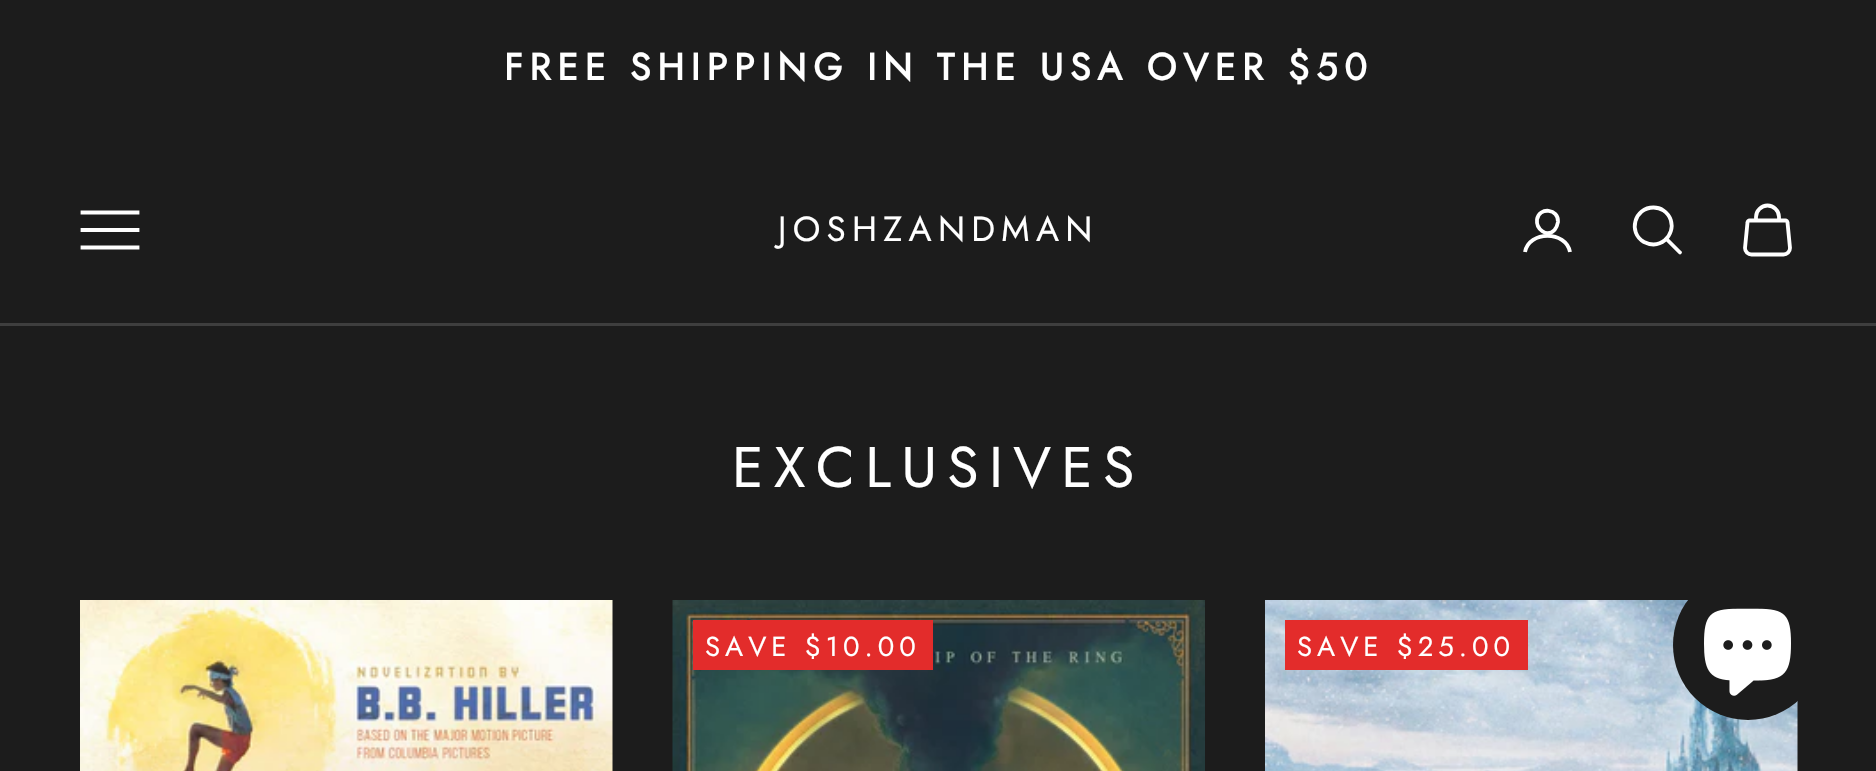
void draw(SkCanvas* canvas) {
	SkPaint fill;
	fill.setAntiAlias(true);
	auto makeFont = [&](const char* family, int weight, float size, bool italic = false) {
		SkFontStyle style(weight, SkFontStyle::kNormal_Width,
			italic ? SkFontStyle::kItalic_Slant : SkFontStyle::kUpright_Slant);
		SkFont result(fontMgr->matchFamilyStyle(family, style), size);
		result.setSubpixel(true);
		return result;
	};
	auto spacedText = [&](const char* s, float x, float y, const SkFont& font, const SkPaint& ink, float letter, float word) {
		std::vector<SkGlyphID> glyphs(font.countText(s, strlen(s), SkTextEncoding::kUTF8));
		std::vector<float> xs(glyphs.size());
		font.textToGlyphs(s, strlen(s), SkTextEncoding::kUTF8, glyphs);
		font.getXPos(glyphs, xs, x);
		float extra = 0;
		for (size_t i = 0; i < glyphs.size(); i++) {
			xs[i] += extra;
			extra += letter + word * (glyphs[i] == font.unicharToGlyph(' '));
		}
		canvas->drawTextBlob(SkTextBlob::MakeFromPosHGlyphs(glyphs, xs, y, font), 0, 0, ink);
	};
	auto box = [&](float l, float t, float r, float b) {
		canvas->drawRect(SkRect::MakeLTRB(l, t, r, b), fill);
	};
	auto picture = [&](const char* path, float l, float t, float r, float b) {
		auto image = SkImages::DeferredFromEncodedData(SkData::MakeFromFileName(path));
		canvas->drawImageRect(image, SkRect::MakeLTRB(l, t, r, b), SkSamplingOptions());
	};
	canvas->clear(0xFF1C1C1C);
	fill.setColor(0xFF3E3E3E);
	box(0, 323, 1876, 326);
	fill.setStyle(SkPaint::kStroke_Style);
	fill.setStrokeWidth(3.8f);
	fill.setStrokeCap(SkPaint::kSquare_Cap);
	fill.setColor(0xFFFFFFFF);
	canvas->drawPath(SkPathBuilder().moveTo(82.5f, 247.5f).lineTo(137.5f, 247.5f).moveTo(82.5f, 230).lineTo(137.5f, 230).moveTo(82.5f, 212.5f).lineTo(137.5f, 212.5f).detach(), fill);
	fill.setStrokeCap(SkPaint::kRound_Cap);
	fill.setStrokeJoin(SkPaint::kRound_Join);
	canvas->drawPath(SkPathBuilder().moveTo(1558, 222).cubicTo(1557.5f, 225, 1556.5f, 227.5f, 1554.5f, 230).cubicTo(1546.5f, 238, 1536, 229, 1537, 219.5f).cubicTo(1539, 206.5f, 1559, 208.5f, 1558, 222).close().detach(), fill);
	fill.setStrokeCap(SkPaint::kButt_Cap);
	fill.setStrokeJoin(SkPaint::kMiter_Join);
	canvas->drawPath(SkPathBuilder().moveTo(1525, 252).cubicTo(1529, 230.5f, 1566, 230.5f, 1570, 252).detach(), fill);
	canvas->drawPath(SkPathBuilder().moveTo(1653.5f, 207.5f).cubicTo(1634.5f, 207.5f, 1627.5f, 232.5f, 1644, 242).cubicTo(1647, 243.5f, 1650, 244.5f, 1653.5f, 244.5f).cubicTo(1671.5f, 243.5f, 1678.5f, 221, 1663.5f, 210.5f).cubicTo(1660.5f, 208.5f, 1657, 207.5f, 1653.5f, 207.5f).close().detach(), fill);
	fill.setStrokeCap(SkPaint::kRound_Cap);
	canvas->drawPath(SkPathBuilder().moveTo(1667, 239.5f).lineTo(1680, 252.5f).detach(), fill);
	fill.setStrokeJoin(SkPaint::kRound_Join);
	canvas->drawPath(SkPathBuilder().moveTo(1749.5f, 220.5f).cubicTo(1748.5f, 220.5f, 1747.5f, 221.5f, 1747.5f, 222.5f).lineTo(1745, 248).cubicTo(1745, 251.5f, 1748, 254.5f, 1751.5f, 254.5f).lineTo(1783.5f, 254.5f).cubicTo(1787, 254.5f, 1790, 251.5f, 1790, 248).lineTo(1787.5f, 222.5f).cubicTo(1787.5f, 221.5f, 1786.5f, 220.5f, 1785.5f, 220.5f).close().moveTo(1756, 220.5f).lineTo(1756, 217).cubicTo(1756, 210.5f, 1761.5f, 205.5f, 1767.5f, 205.5f).cubicTo(1773.5f, 205.5f, 1779, 210.5f, 1779, 217).lineTo(1779, 220.5f).detach(), fill);
	picture("image0.png", 80, 600, 613, 771);
	picture("image1.png", 672, 600, 1205, 771);
	fill.setStyle(SkPaint::kFill_Style);
	fill.setColor(0xFFE32C2B);
	box(693, 620, 933, 670);
	picture("image2.png", 1265, 600, 1798, 771);
	box(1285, 620, 1528, 670);
	fill.setColor(0xFF1C1C1C);
	canvas->drawCircle(1748, 645, 75, fill);
	picture("image3.png", 1704, 608, 1791, 696);
	auto font1 = makeFont("Jost", 700, 37.5f);
	fill.setColor(0xFFFFFFFF);
	spacedText("FREE SHIPPING IN THE USA OVER $50", 504, 80, font1, fill, 6.75f, 0);
	auto font2 = makeFont("Jost", 400, 35);
	spacedText("JOSHZANDMAN", 778, 241, font2, fill, 6.25f, 0);
	auto font3 = makeFont("Jost", 400, 57.25f);
	spacedText("EXCLUSIVES", 732, 487, font3, fill, 10.25f, 0);
	auto font4 = makeFont("Jost", 400, 27.5f);
	spacedText("SAVE $10.00", 705, 656, font4, fill, 5, 0);
	spacedText("SAVE $25.00", 1297, 656, font4, fill, 5, 0);
}
